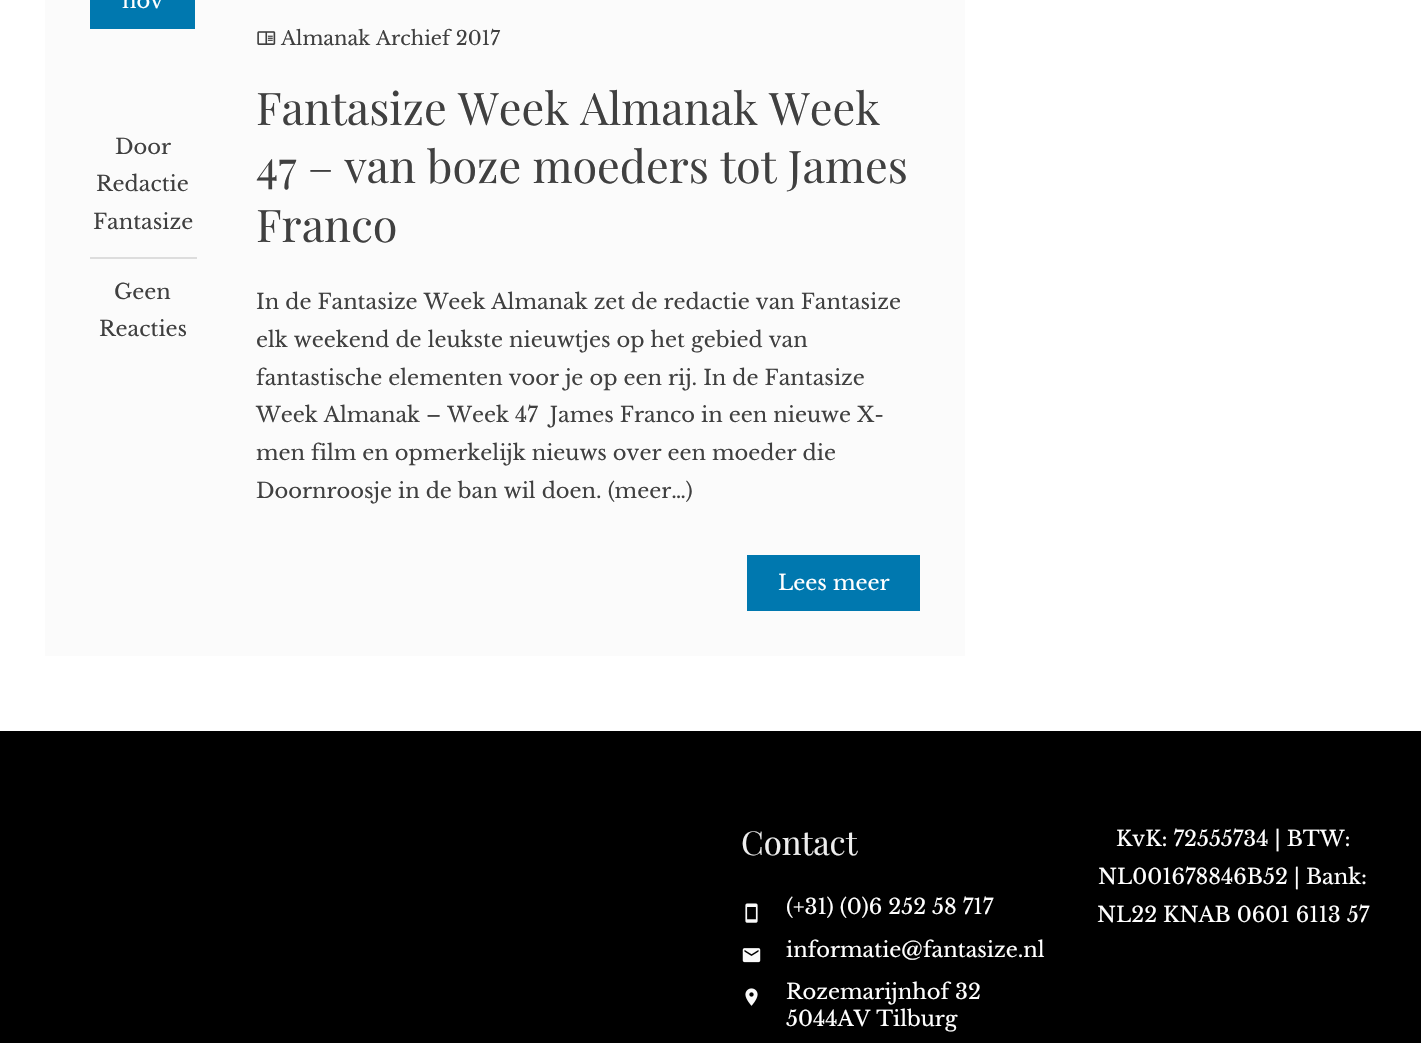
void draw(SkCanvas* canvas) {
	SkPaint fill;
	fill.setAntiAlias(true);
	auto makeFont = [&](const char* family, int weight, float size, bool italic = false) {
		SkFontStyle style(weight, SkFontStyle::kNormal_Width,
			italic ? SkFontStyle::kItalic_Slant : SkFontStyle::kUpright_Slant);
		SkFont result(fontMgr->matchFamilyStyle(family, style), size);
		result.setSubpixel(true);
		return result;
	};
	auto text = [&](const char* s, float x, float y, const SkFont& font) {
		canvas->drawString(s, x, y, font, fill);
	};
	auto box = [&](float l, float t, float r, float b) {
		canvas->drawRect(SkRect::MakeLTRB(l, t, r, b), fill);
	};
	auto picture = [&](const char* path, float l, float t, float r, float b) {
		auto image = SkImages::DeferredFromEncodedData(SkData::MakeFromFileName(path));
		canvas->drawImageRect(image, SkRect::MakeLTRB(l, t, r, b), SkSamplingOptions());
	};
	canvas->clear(0xFFFFFFFF);
	fill.setColor(0xFFFBFBFB);
	box(45, 0, 965, 656);
	fill.setColor(0xFF0078AF);
	box(90, 0, 195, 29);
	fill.setColor(0xFFDDDDDD);
	box(90, 257, 197, 259);
	picture("image0.png", 257, 31, 276, 45);
	fill.setColor(0xFF0078AF);
	box(747, 555, 920, 611);
	fill.setColor(0xFF000000);
	box(0, 731, 1421, 1043);
	picture("image1.png", 745, 903, 758, 923);
	picture("image2.png", 742, 948, 761, 963);
	picture("image3.png", 745, 988, 758, 1006);
	auto font1 = makeFont("Libre Baskerville", 400, 21);
	fill.setColor(0xFFFFFFFF);
	text("nov", 122, 8, font1);
	fill.setColor(0xFF404040);
	text("Door", 115, 154, font1);
	text("Redactie", 96, 191, font1);
	text("Fantasize", 93, 229, font1);
	text("Geen", 114, 299, font1);
	text("Reacties", 99, 336, font1);
	auto font2 = makeFont("Libre Baskerville", 400, 19.5f);
	text("Almanak Archief 2017", 281, 45, font2);
	auto font3 = makeFont("Playfair Display", 400, 45);
	text("Fantasize Week Almanak Week", 256, 125, font3);
	text("47 – van boze moeders tot James", 256, 183, font3);
	text("Franco", 256, 242, font3);
	text("In de Fantasize Week Almanak zet de redactie van Fantasize", 256, 309, font1);
	text("elk weekend de leukste nieuwtjes op het gebied van", 256, 347, font1);
	text("fantastische elementen voor je op een rij. In de Fantasize", 256, 385, font1);
	text("Week Almanak – Week 47  James Franco in een nieuwe X-", 256, 422, font1);
	text("men film en opmerkelijk nieuws over een moeder die", 256, 460, font1);
	text("Doornroosje in de ban wil doen. (meer…)", 256, 498, font1);
	fill.setColor(0xFFFFFFFF);
	text("Lees meer", 778, 590, font1);
	auto font4 = makeFont("Playfair Display", 400, 33);
	fill.setColor(0xFFEEEEEE);
	text("Contact", 741, 855, font4);
	fill.setColor(0xFFFFFFFF);
	text("(+31) (0)6 252 58 717", 786, 914, font1);
	text("informatie@fantasize.nl", 786, 957, font1);
	text("Rozemarijnhof 32", 786, 999, font1);
	text("5044AV Tilburg", 786, 1026, font1);
	text("KvK: 72555734 | BTW:", 1116, 846, font1);
	text("NL001678846B52 | Bank:", 1098, 884, font1);
	text("NL22 KNAB 0601 6113 57", 1097, 922, font1);
}
